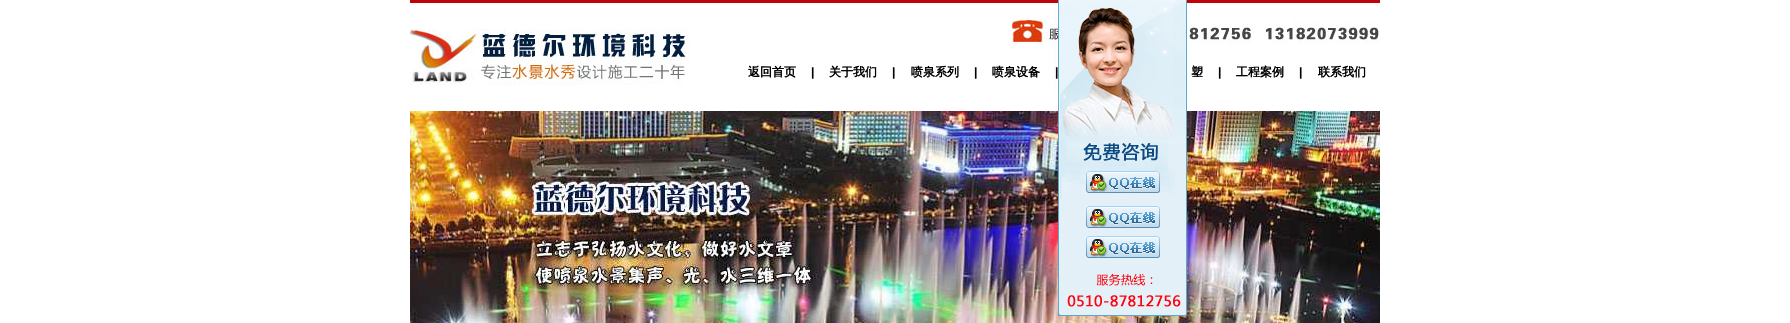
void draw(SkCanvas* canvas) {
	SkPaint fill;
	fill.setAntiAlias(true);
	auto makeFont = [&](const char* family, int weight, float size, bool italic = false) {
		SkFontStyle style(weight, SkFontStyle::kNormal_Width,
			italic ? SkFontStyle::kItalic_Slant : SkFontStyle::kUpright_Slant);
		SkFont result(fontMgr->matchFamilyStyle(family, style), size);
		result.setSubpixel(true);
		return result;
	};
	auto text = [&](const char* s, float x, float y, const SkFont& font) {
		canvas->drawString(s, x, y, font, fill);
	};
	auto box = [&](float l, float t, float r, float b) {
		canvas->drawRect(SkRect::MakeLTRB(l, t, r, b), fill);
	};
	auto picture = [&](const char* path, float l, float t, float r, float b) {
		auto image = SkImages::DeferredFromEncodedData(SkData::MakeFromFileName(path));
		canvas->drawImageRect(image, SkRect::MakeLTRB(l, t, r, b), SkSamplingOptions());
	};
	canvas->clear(0xFFFFFFFF);
	fill.setColor(0xFFC00307);
	box(410, 0, 1380, 3);
	picture("image4.png", 410, 29, 690, 85);
	picture("image5.png", 1012, 20, 1380, 44);
	picture("image6.png", 410, 111, 1380, 323);
	auto font1 = makeFont("WenQuanYi Zen Hei", 700, 12);
	fill.setColor(0xFF000000);
	text("返回首页", 748, 76, font1);
	auto font2 = makeFont("Liberation Sans", 700, 12);
	text("|", 811, 76, font2);
	text("关于我们", 829, 76, font1);
	text("|", 892, 76, font2);
	text("喷泉系列", 911, 76, font1);
	text("|", 974, 76, font2);
	text("喷泉设备", 992, 76, font1);
	text("|", 1055, 76, font2);
	picture("image0.png", 1054, 0, 1187, 316);
	picture("image3.png", 1086, 236, 1160, 258);
	picture("image2.png", 1086, 206, 1160, 228);
	picture("image1.png", 1086, 171, 1160, 193);
	text("塑", 1191, 76, font1);
	text("|", 1218, 76, font2);
	text("工程案例", 1236, 76, font1);
	text("|", 1299, 76, font2);
	text("联系我们", 1318, 76, font1);
}
